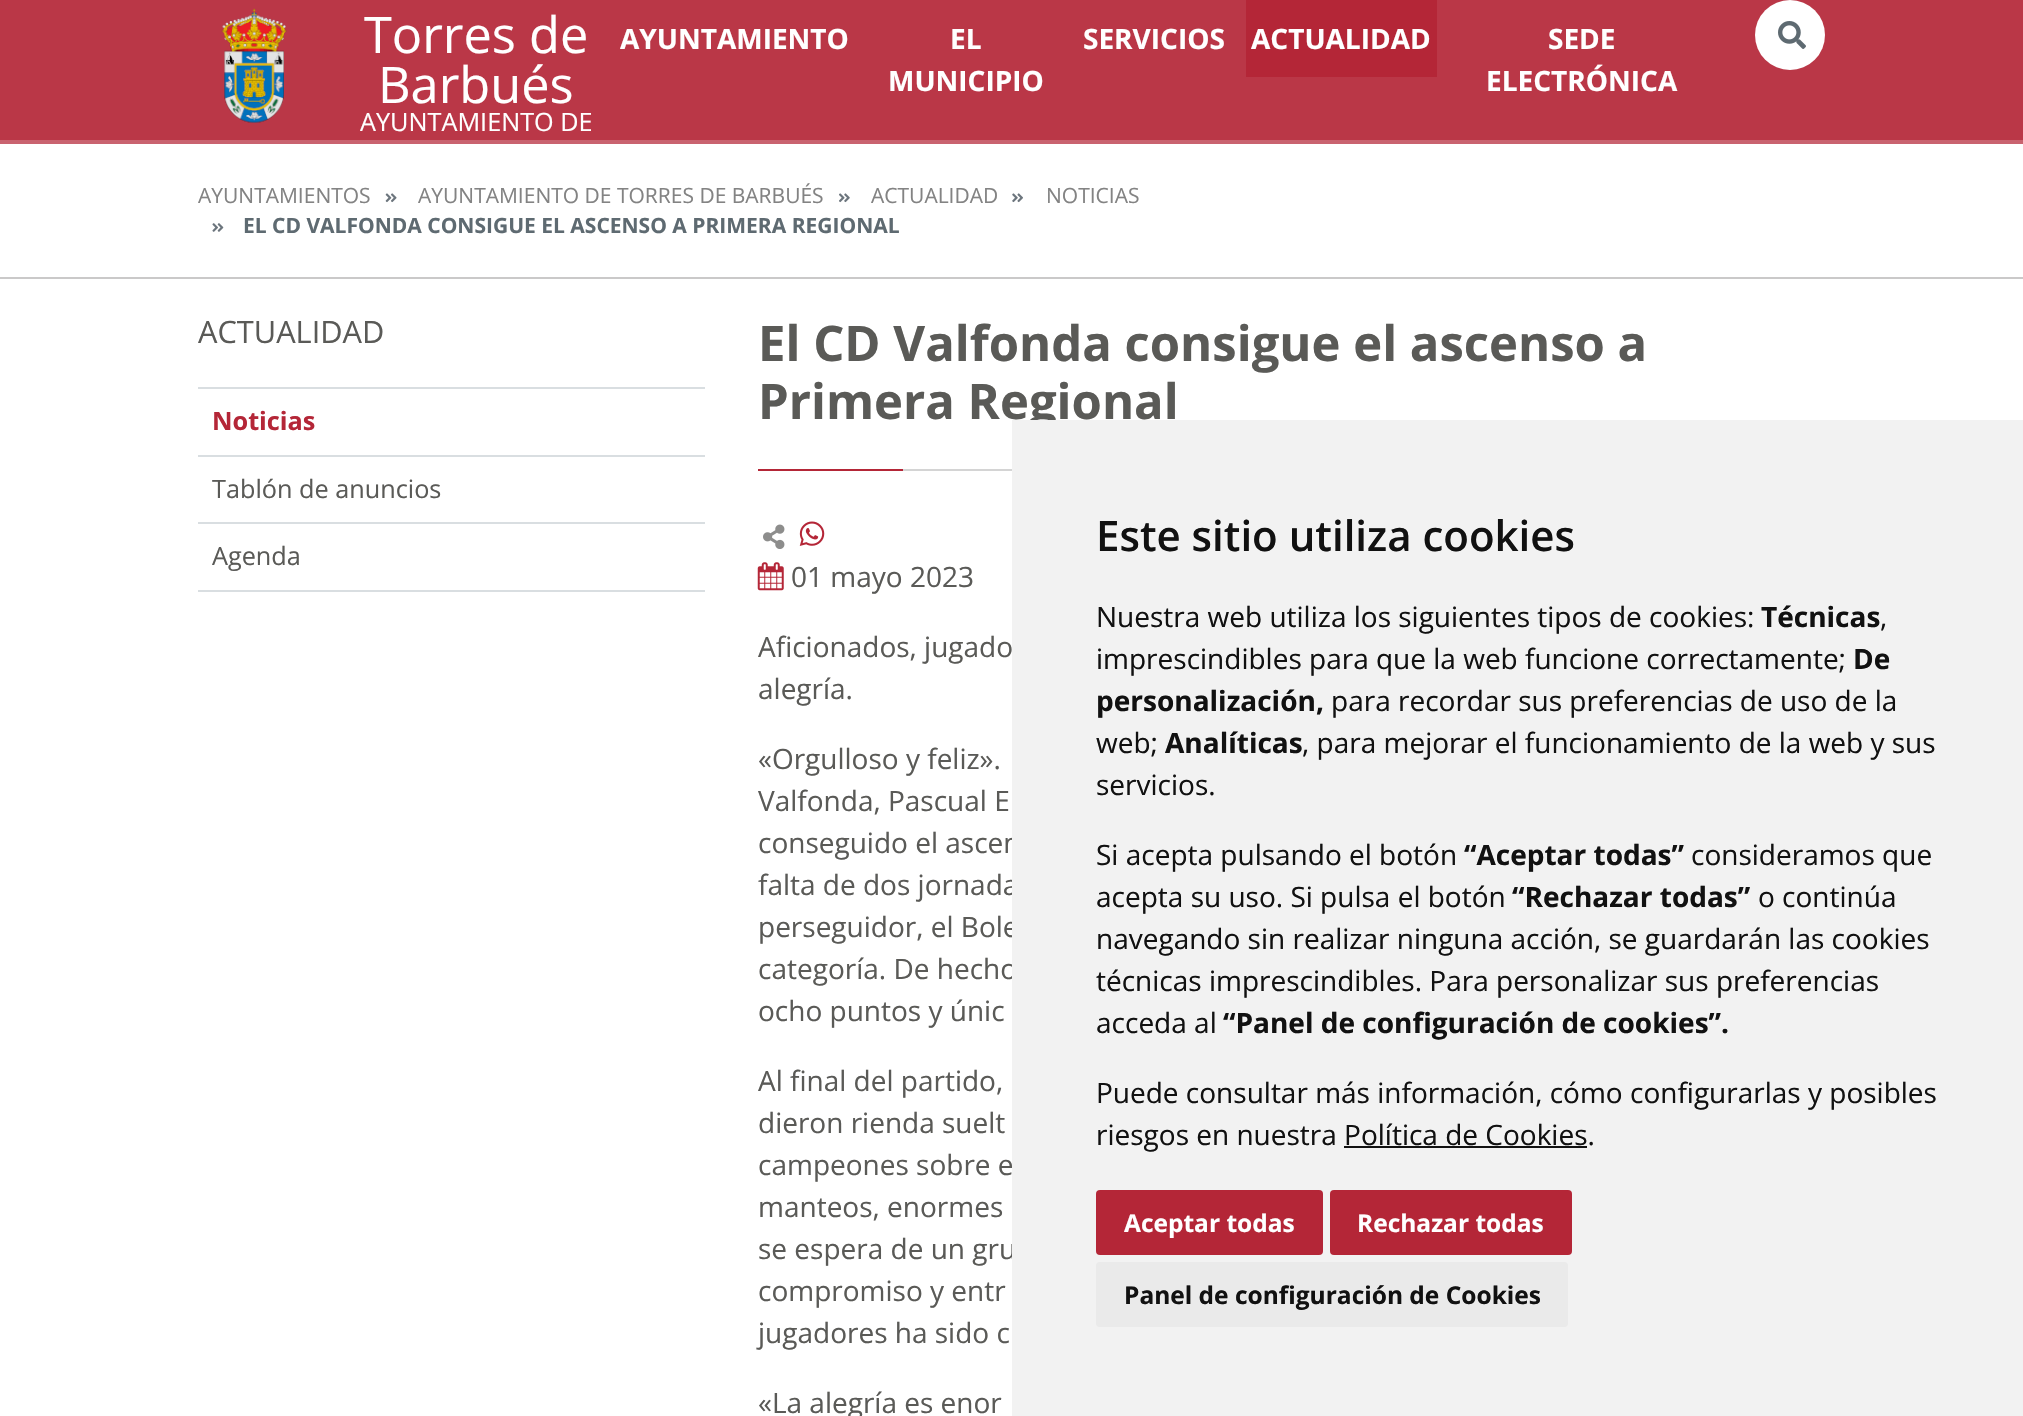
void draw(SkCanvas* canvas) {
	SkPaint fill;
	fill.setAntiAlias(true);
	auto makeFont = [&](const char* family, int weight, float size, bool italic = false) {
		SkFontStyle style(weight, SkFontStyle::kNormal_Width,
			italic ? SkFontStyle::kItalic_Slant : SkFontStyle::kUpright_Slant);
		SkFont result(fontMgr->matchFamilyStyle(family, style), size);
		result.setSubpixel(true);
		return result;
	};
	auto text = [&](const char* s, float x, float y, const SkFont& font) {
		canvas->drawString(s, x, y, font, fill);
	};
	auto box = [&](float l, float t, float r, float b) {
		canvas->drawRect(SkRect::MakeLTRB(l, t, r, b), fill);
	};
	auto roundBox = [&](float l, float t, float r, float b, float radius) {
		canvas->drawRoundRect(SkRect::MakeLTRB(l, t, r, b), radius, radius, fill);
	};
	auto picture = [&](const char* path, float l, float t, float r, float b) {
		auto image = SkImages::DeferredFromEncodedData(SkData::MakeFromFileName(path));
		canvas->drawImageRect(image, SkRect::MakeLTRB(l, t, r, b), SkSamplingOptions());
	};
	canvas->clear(0xFFFFFFFF);
	fill.setColor(0xFFC9636F);
	box(0, 140, 2023, 144);
	fill.setColor(0xFFBA3747);
	box(0, 0, 2023, 140);
	picture("image0.png", 221, 8, 287, 123);
	fill.setColor(0xFFB42637);
	box(1246, 0, 1437, 77);
	fill.setColor(0xFFFFFFFF);
	canvas->drawCircle(1790, 35, 35, fill);
	picture("image1.png", 1778, 21, 1806, 49);
	fill.setColor(0xFFCAC9C9);
	box(0, 277, 2023, 279);
	picture("image2.png", 385, 193, 397, 203);
	picture("image3.png", 839, 193, 850, 203);
	picture("image4.png", 1012, 193, 1023, 203);
	picture("image5.png", 212, 223, 224, 232);
	fill.setColor(0xFFD9DEE1);
	box(198, 387, 705, 389);
	box(198, 455, 705, 457);
	box(198, 522, 705, 524);
	box(198, 590, 705, 592);
	fill.setColor(0xFFB42637);
	box(758, 469, 903, 471);
	fill.setColor(0xFFD4D4D4);
	box(903, 469, 1012, 471);
	picture("image6.png", 763, 524, 785, 549);
	picture("image7.png", 799, 521, 825, 546);
	picture("image8.png", 757, 562, 784, 591);
	auto font1 = makeFont("Open Sans", 400, 50.5f);
	fill.setColor(0xFFFFFFFF);
	text("Torres de", 364, 53, font1);
	text("Barbués", 378, 103, font1);
	auto font2 = makeFont("Open Sans", 400, 25.25f);
	text("AYUNTAMIENTO DE", 360, 131, font2);
	auto font3 = makeFont("Open Sans", 700, 28);
	text("AYUNTAMIENTO", 620, 49, font3);
	text("EL", 950, 49, font3);
	text("MUNICIPIO", 888, 91, font3);
	text("SERVICIOS", 1083, 49, font3);
	text("ACTUALIDAD", 1251, 49, font3);
	text("SEDE", 1548, 49, font3);
	text("ELECTRÓNICA", 1486, 91, font3);
	auto font4 = makeFont("Open Sans", 400, 21);
	fill.setColor(0xFF838383);
	text("AYUNTAMIENTOS", 198, 203, font4);
	text("AYUNTAMIENTO DE TORRES DE BARBUÉS", 418, 203, font4);
	text("ACTUALIDAD", 871, 203, font4);
	text("NOTICIAS", 1046, 203, font4);
	auto font5 = makeFont("Open Sans", 700, 21);
	fill.setColor(0xFF5E6A71);
	text("EL CD VALFONDA CONSIGUE EL ASCENSO A PRIMERA REGIONAL", 243, 233, font5);
	auto font6 = makeFont("Open Sans", 400, 30.75f);
	fill.setColor(0xFF5A5A57);
	text("ACTUALIDAD", 198, 343, font6);
	auto font7 = makeFont("Open Sans", 700, 25.25f);
	fill.setColor(0xFFB42637);
	text("Noticias", 212, 430, font7);
	fill.setColor(0xFF5A5A57);
	text("Tablón de anuncios", 212, 498, font2);
	text("Agenda", 212, 565, font2);
	auto font8 = makeFont("Open Sans", 700, 49);
	text("El CD Valfonda consigue el ascenso a", 758, 361, font8);
	text("Primera Regional", 758, 419, font8);
	auto font9 = makeFont("Open Sans", 400, 28);
	text("01 mayo 2023", 791, 587, font9);
	text("Aficionados, jugado", 758, 657, font9);
	text("alegría.", 758, 699, font9);
	text("«Orgulloso y feliz».", 758, 769, font9);
	text("Valfonda, Pascual E", 758, 811, font9);
	text("conseguido el ascen", 758, 853, font9);
	text("falta de dos jornada", 758, 895, font9);
	text("perseguidor, el Bole", 758, 937, font9);
	text("categoría. De hecho", 758, 979, font9);
	text("ocho puntos y únic", 758, 1021, font9);
	text("Al final del partido,", 758, 1091, font9);
	text("dieron rienda suelt", 758, 1133, font9);
	text("campeones sobre e", 758, 1175, font9);
	text("manteos, enormes", 758, 1217, font9);
	text("se espera de un gru", 758, 1259, font9);
	text("compromiso y entr", 758, 1301, font9);
	text("jugadores ha sido c", 758, 1343, font9);
	text("«La alegría es enor", 758, 1413, font9);
	fill.setColor(0xFFF2F2F2);
	box(1012, 420, 2023, 1416);
	auto font10 = makeFont("Open Sans", 600, 42);
	fill.setColor(0xFF111111);
	text("Este sitio utiliza cookies", 1096, 551, font10);
	text("Nuestra web utiliza los siguientes tipos de cookies:", 1096, 627, font9);
	text("Técnicas", 1761, 627, font3);
	text(",", 1880, 627, font9);
	text("imprescindibles para que la web funcione correctamente;", 1096, 669, font9);
	text("De", 1853, 669, font3);
	text("personalización,", 1096, 711, font3);
	text("para recordar sus preferencias de uso de la", 1331, 711, font9);
	text("web;", 1096, 753, font9);
	text("Analíticas", 1165, 753, font3);
	text(", para mejorar el funcionamiento de la web y sus", 1302, 753, font9);
	text("servicios.", 1096, 795, font9);
	text("Si acepta pulsando el botón", 1096, 865, font9);
	text("“Aceptar todas”", 1464, 865, font3);
	text("consideramos que", 1691, 865, font9);
	text("acepta su uso. Si pulsa el botón", 1096, 907, font9);
	text("“Rechazar todas”", 1512, 907, font3);
	text("o continúa", 1758, 907, font9);
	text("navegando sin realizar ninguna acción, se guardarán las cookies", 1096, 949, font9);
	text("técnicas imprescindibles. Para personalizar sus preferencias", 1096, 991, font9);
	text("acceda al", 1096, 1033, font9);
	text("“Panel de configuración de cookies”.", 1223, 1033, font3);
	text("Puede consultar más información, cómo configurarlas y posibles", 1096, 1103, font9);
	text("riesgos en nuestra Política de Cookies.", 1096, 1145, font9);
	box(1344, 1146, 1587, 1148);
	fill.setColor(0xFFB42637);
	roundBox(1096, 1190, 1323, 1255, 4);
	auto font11 = makeFont("Open Sans", 700, 24.5f);
	fill.setColor(0xFFFFFFFF);
	text("Aceptar todas", 1124, 1232, font11);
	fill.setColor(0xFFB42637);
	roundBox(1330, 1190, 1572, 1255, 4);
	fill.setColor(0xFFFFFFFF);
	text("Rechazar todas", 1357, 1232, font11);
	fill.setColor(0xFFEAEAEA);
	roundBox(1096, 1262, 1568, 1327, 4);
	fill.setColor(0xFF111111);
	text("Panel de configuración de Cookies", 1124, 1304, font11);
}
